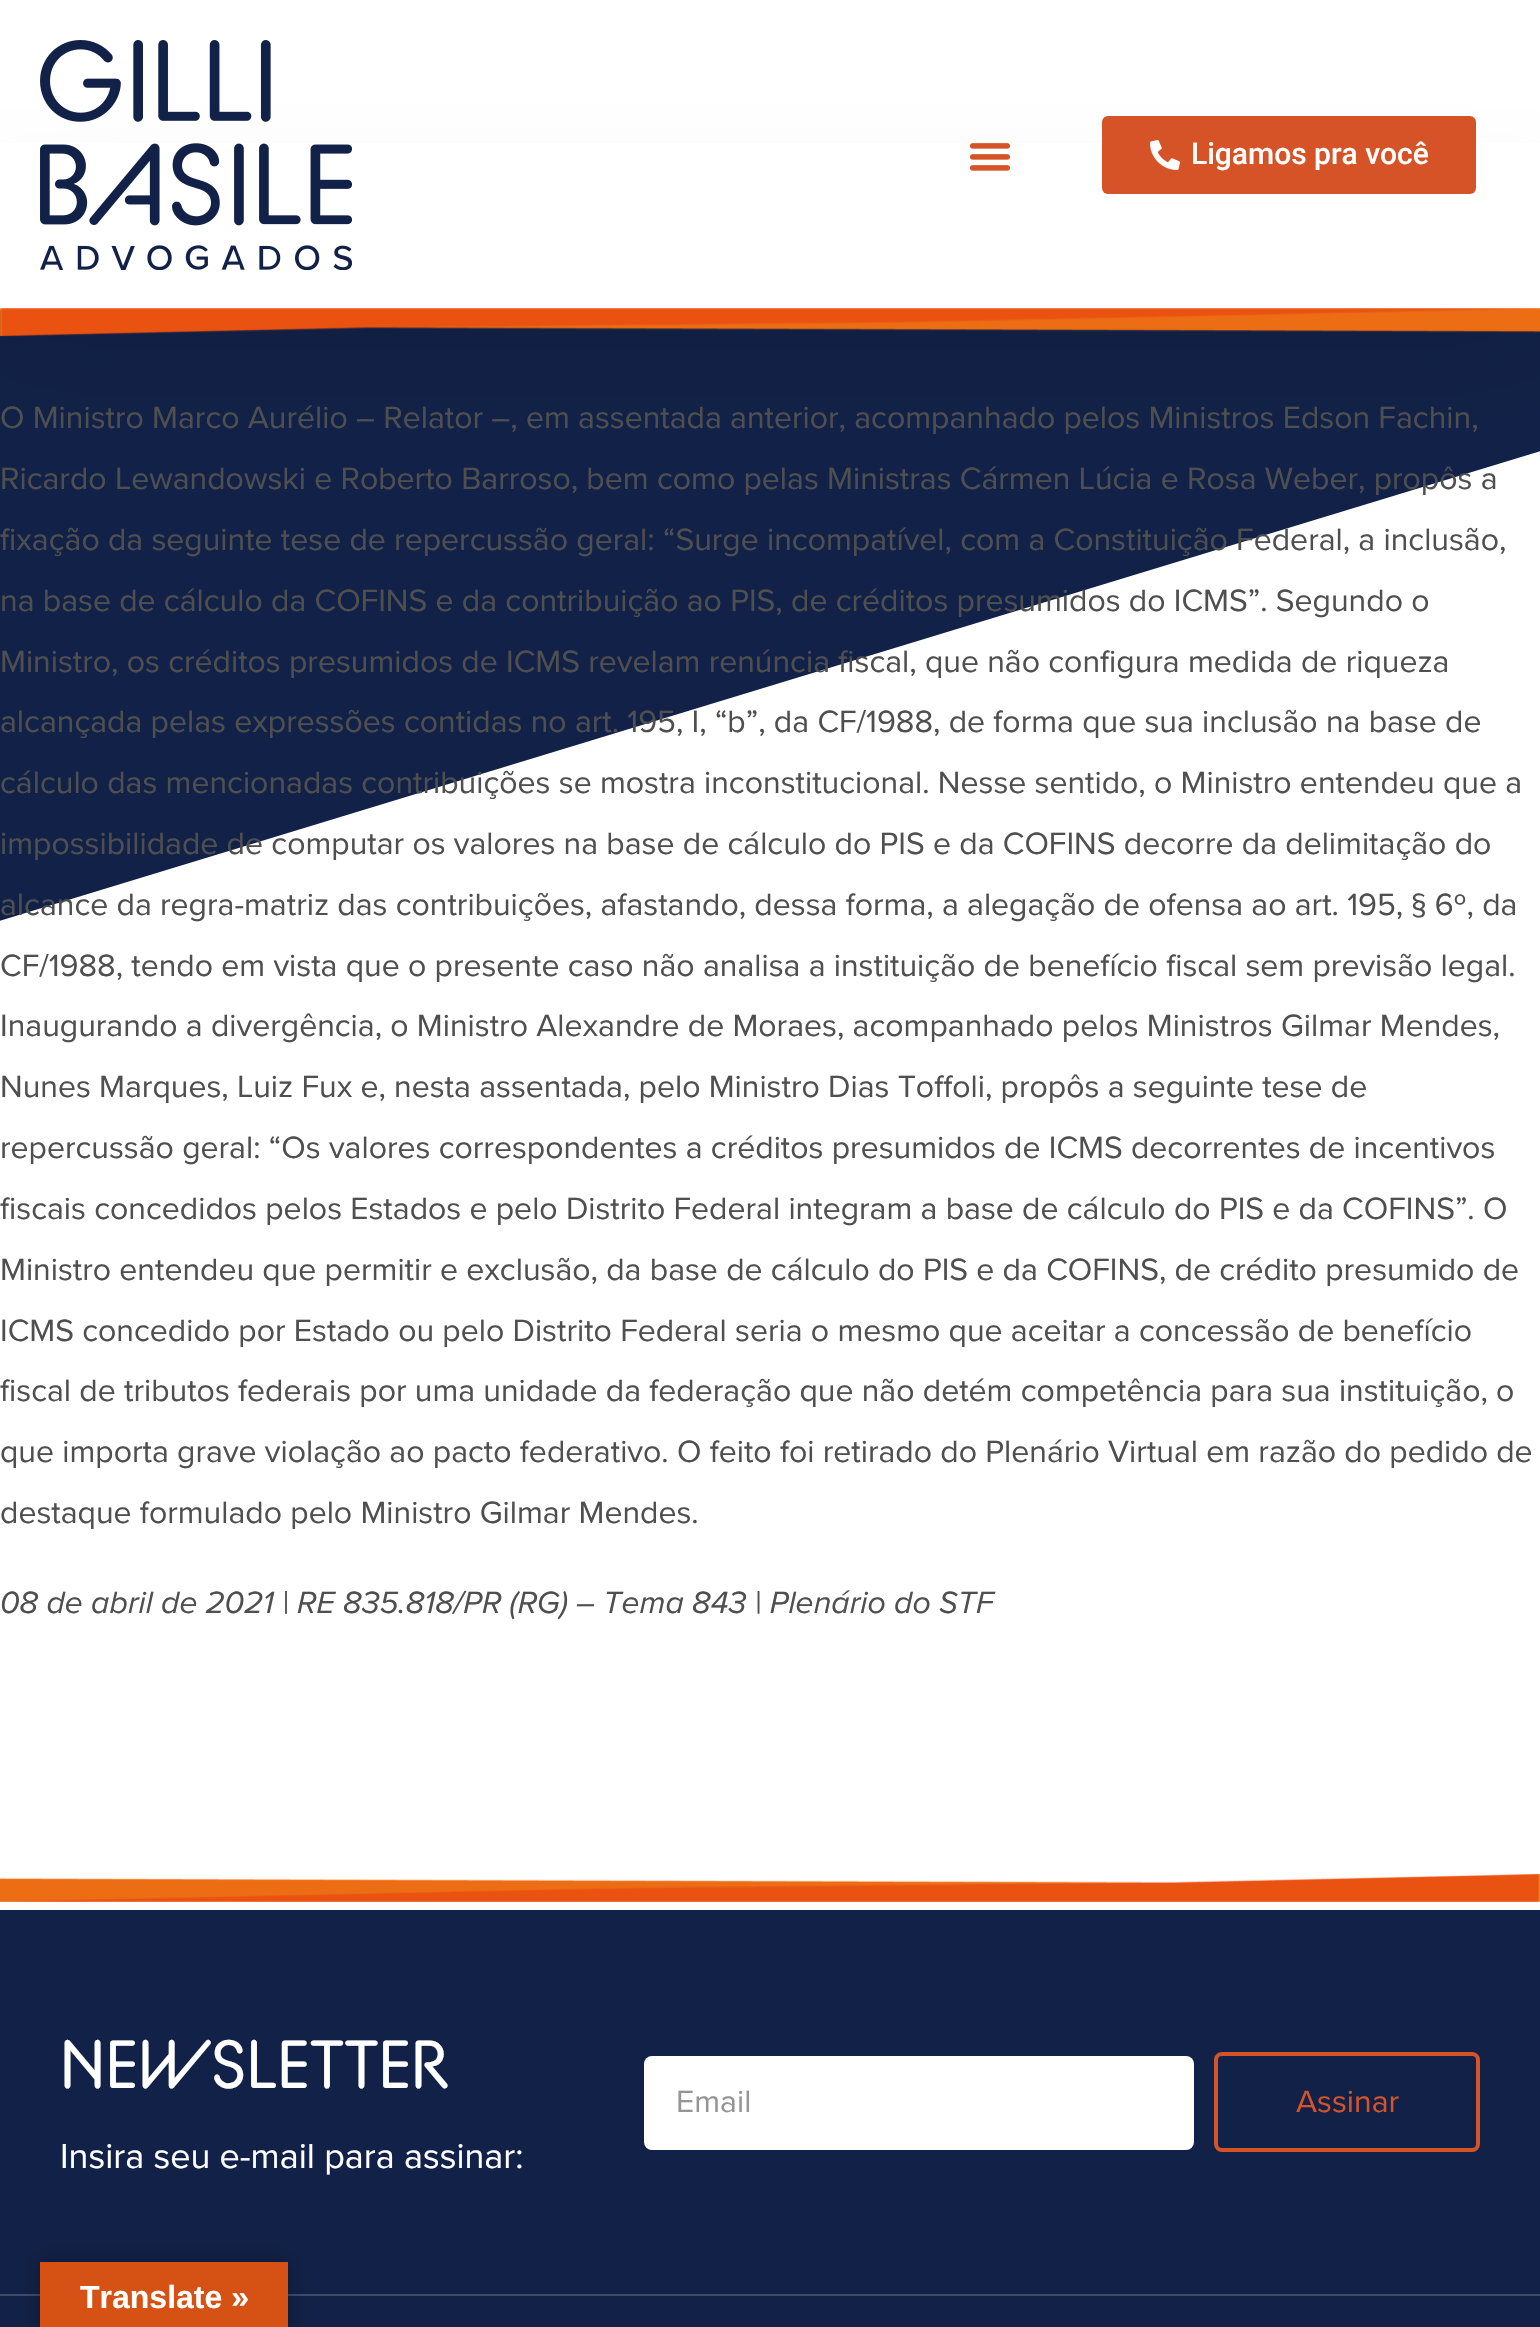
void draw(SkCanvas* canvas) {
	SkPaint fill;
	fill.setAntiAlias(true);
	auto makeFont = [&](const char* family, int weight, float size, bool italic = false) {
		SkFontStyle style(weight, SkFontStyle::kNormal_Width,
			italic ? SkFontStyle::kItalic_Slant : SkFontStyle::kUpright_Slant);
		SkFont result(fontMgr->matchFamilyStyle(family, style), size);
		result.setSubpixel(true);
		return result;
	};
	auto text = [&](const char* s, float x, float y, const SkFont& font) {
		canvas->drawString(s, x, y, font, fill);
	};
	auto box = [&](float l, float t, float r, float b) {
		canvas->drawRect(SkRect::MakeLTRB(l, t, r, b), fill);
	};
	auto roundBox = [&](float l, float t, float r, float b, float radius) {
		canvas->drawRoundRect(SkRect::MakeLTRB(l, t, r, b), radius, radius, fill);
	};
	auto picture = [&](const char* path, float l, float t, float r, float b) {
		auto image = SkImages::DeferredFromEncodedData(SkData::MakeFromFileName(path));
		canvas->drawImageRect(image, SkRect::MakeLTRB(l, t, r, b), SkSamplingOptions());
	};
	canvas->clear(0xFFFFFFFF);
	fill.setColor(0xFF122147);
	box(0, 310, 1540, 921);
	canvas->save();
	canvas->clipRect(SkRect::MakeLTRB(0, 450, 1540, 950));
	fill.setColor(0xFFFFFFFF);
	canvas->drawPath(SkPathBuilder().moveTo(-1, 921).lineTo(-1, 951).lineTo(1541, 951).lineTo(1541, 451).close().detach(), fill);
	canvas->restore();
	fill.setColor(0x47000000);
	fill.setMaskFilter(SkMaskFilter::MakeBlur(kNormal_SkBlurStyle, 60));
	canvas->drawRect(SkRect::MakeLTRB(0, 248, 1540, 298), fill);
	fill.setMaskFilter(nullptr);
	fill.setColor(0xFFFFFFFF);
	box(0, 143, 1540, 310);
	picture("image0.png", 40, 40, 352, 270);
	picture("image1.png", 969, 143, 1011, 171);
	fill.setColor(0xFFD55327);
	roundBox(1102, 116, 1476, 194, 6);
	picture("image2.png", 1150, 140, 1180, 170);
	picture("image3.png", 0, 308, 1540, 337);
	picture("image4.png", 0, 1874, 1540, 1902);
	fill.setColor(0xFF122147);
	box(0, 1910, 1540, 2294);
	fill.setColor(0xFFFFFFFF);
	roundBox(644, 2056, 1194, 2150, 8);
	fill.setStyle(SkPaint::kStroke_Style);
	fill.setStrokeWidth(4);
	fill.setColor(0xFFD55327);
	canvas->drawRoundRect(SkRect::MakeLTRB(1216, 2054, 1478, 2150), 6, 6, fill);
	fill.setStyle(SkPaint::kFill_Style);
	fill.setColor(0xFF122147);
	box(0, 2296, 1540, 2327);
	fill.setColor(0xFF3F4B6A);
	box(0, 2294, 1540, 2296);
	fill.setColor(0x4D000000);
	fill.setMaskFilter(SkMaskFilter::MakeBlur(kNormal_SkBlurStyle, 9));
	canvas->drawRect(SkRect::MakeLTRB(40, 2262, 288, 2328), fill);
	fill.setMaskFilter(nullptr);
	fill.setColor(0xFFD65214);
	box(40, 2262, 288, 2327);
	auto font1 = makeFont("Roboto", 500, 30);
	fill.setColor(0xFFFFFFFF);
	text("Ligamos pra você", 1191, 164, font1);
	auto font2 = makeFont("Proxima Nova", 400, 32);
	fill.setColor(0xFF4F4F4F);
	text("O Ministro Marco Aurélio – Relator –, em assentada anterior, acompanhado pelos Ministros Edson Fachin,", 0, 428, font2);
	text("Ricardo Lewandowski e Roberto Barroso, bem como pelas Ministras Cármen Lúcia e Rosa Weber, propôs a", 0, 489, font2);
	text("fixação da seguinte tese de repercussão geral: “Surge incompatível, com a Constituição Federal, a inclusão,", 0, 550, font2);
	text("na base de cálculo da COFINS e da contribuição ao PIS, de créditos presumidos do ICMS”. Segundo o", 0, 611, font2);
	text("Ministro, os créditos presumidos de ICMS revelam renúncia fiscal, que não configura medida de riqueza", 0, 672, font2);
	text("alcançada pelas expressões contidas no art. 195, I, “b”, da CF/1988, de forma que sua inclusão na base de", 0, 732, font2);
	text("cálculo das mencionadas contribuições se mostra inconstitucional. Nesse sentido, o Ministro entendeu que a", 0, 793, font2);
	text("impossibilidade de computar os valores na base de cálculo do PIS e da COFINS decorre da delimitação do", 0, 854, font2);
	text("alcance da regra-matriz das contribuições, afastando, dessa forma, a alegação de ofensa ao art. 195, § 6º, da", 0, 915, font2);
	text("CF/1988, tendo em vista que o presente caso não analisa a instituição de benefício fiscal sem previsão legal.", 0, 976, font2);
	text("Inaugurando a divergência, o Ministro Alexandre de Moraes, acompanhado pelos Ministros Gilmar Mendes,", 0, 1036, font2);
	text("Nunes Marques, Luiz Fux e, nesta assentada, pelo Ministro Dias Toffoli, propôs a seguinte tese de", 0, 1097, font2);
	text("repercussão geral: “Os valores correspondentes a créditos presumidos de ICMS decorrentes de incentivos", 0, 1158, font2);
	text("fiscais concedidos pelos Estados e pelo Distrito Federal integram a base de cálculo do PIS e da COFINS”. O", 0, 1219, font2);
	text("Ministro entendeu que permitir e exclusão, da base de cálculo do PIS e da COFINS, de crédito presumido de", 0, 1280, font2);
	text("ICMS concedido por Estado ou pelo Distrito Federal seria o mesmo que aceitar a concessão de benefício", 0, 1341, font2);
	text("fiscal de tributos federais por uma unidade da federação que não detém competência para sua instituição, o", 0, 1401, font2);
	text("que importa grave violação ao pacto federativo. O feito foi retirado do Plenário Virtual em razão do pedido de", 0, 1462, font2);
	text("destaque formulado pelo Ministro Gilmar Mendes.", 0, 1523, font2);
	auto font3 = makeFont("Proxima Nova", 400, 32, true);
	text("08 de abril de 2021 | RE 835.818/PR (RG) – Tema 843 | Plenário do STF", 0, 1613, font3);
	auto font4 = makeFont("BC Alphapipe", 400, 68);
	fill.setColor(0xFFFFFFFF);
	text("NEWSLETTER", 60, 2088, font4);
	auto font5 = makeFont("Proxima Nova", 400, 36);
	text("Insira seu e-mail para assinar:", 60, 2168, font5);
	fill.setColor(0xFF959595);
	text("Email", 676, 2112, font2);
	fill.setColor(0xFFD55327);
	text("Assinar", 1296, 2112, font2);
	auto font6 = makeFont("Liberation Sans", 700, 32);
	fill.setColor(0xFFFFFFFF);
	text("Translate »", 80, 2308, font6);
}
